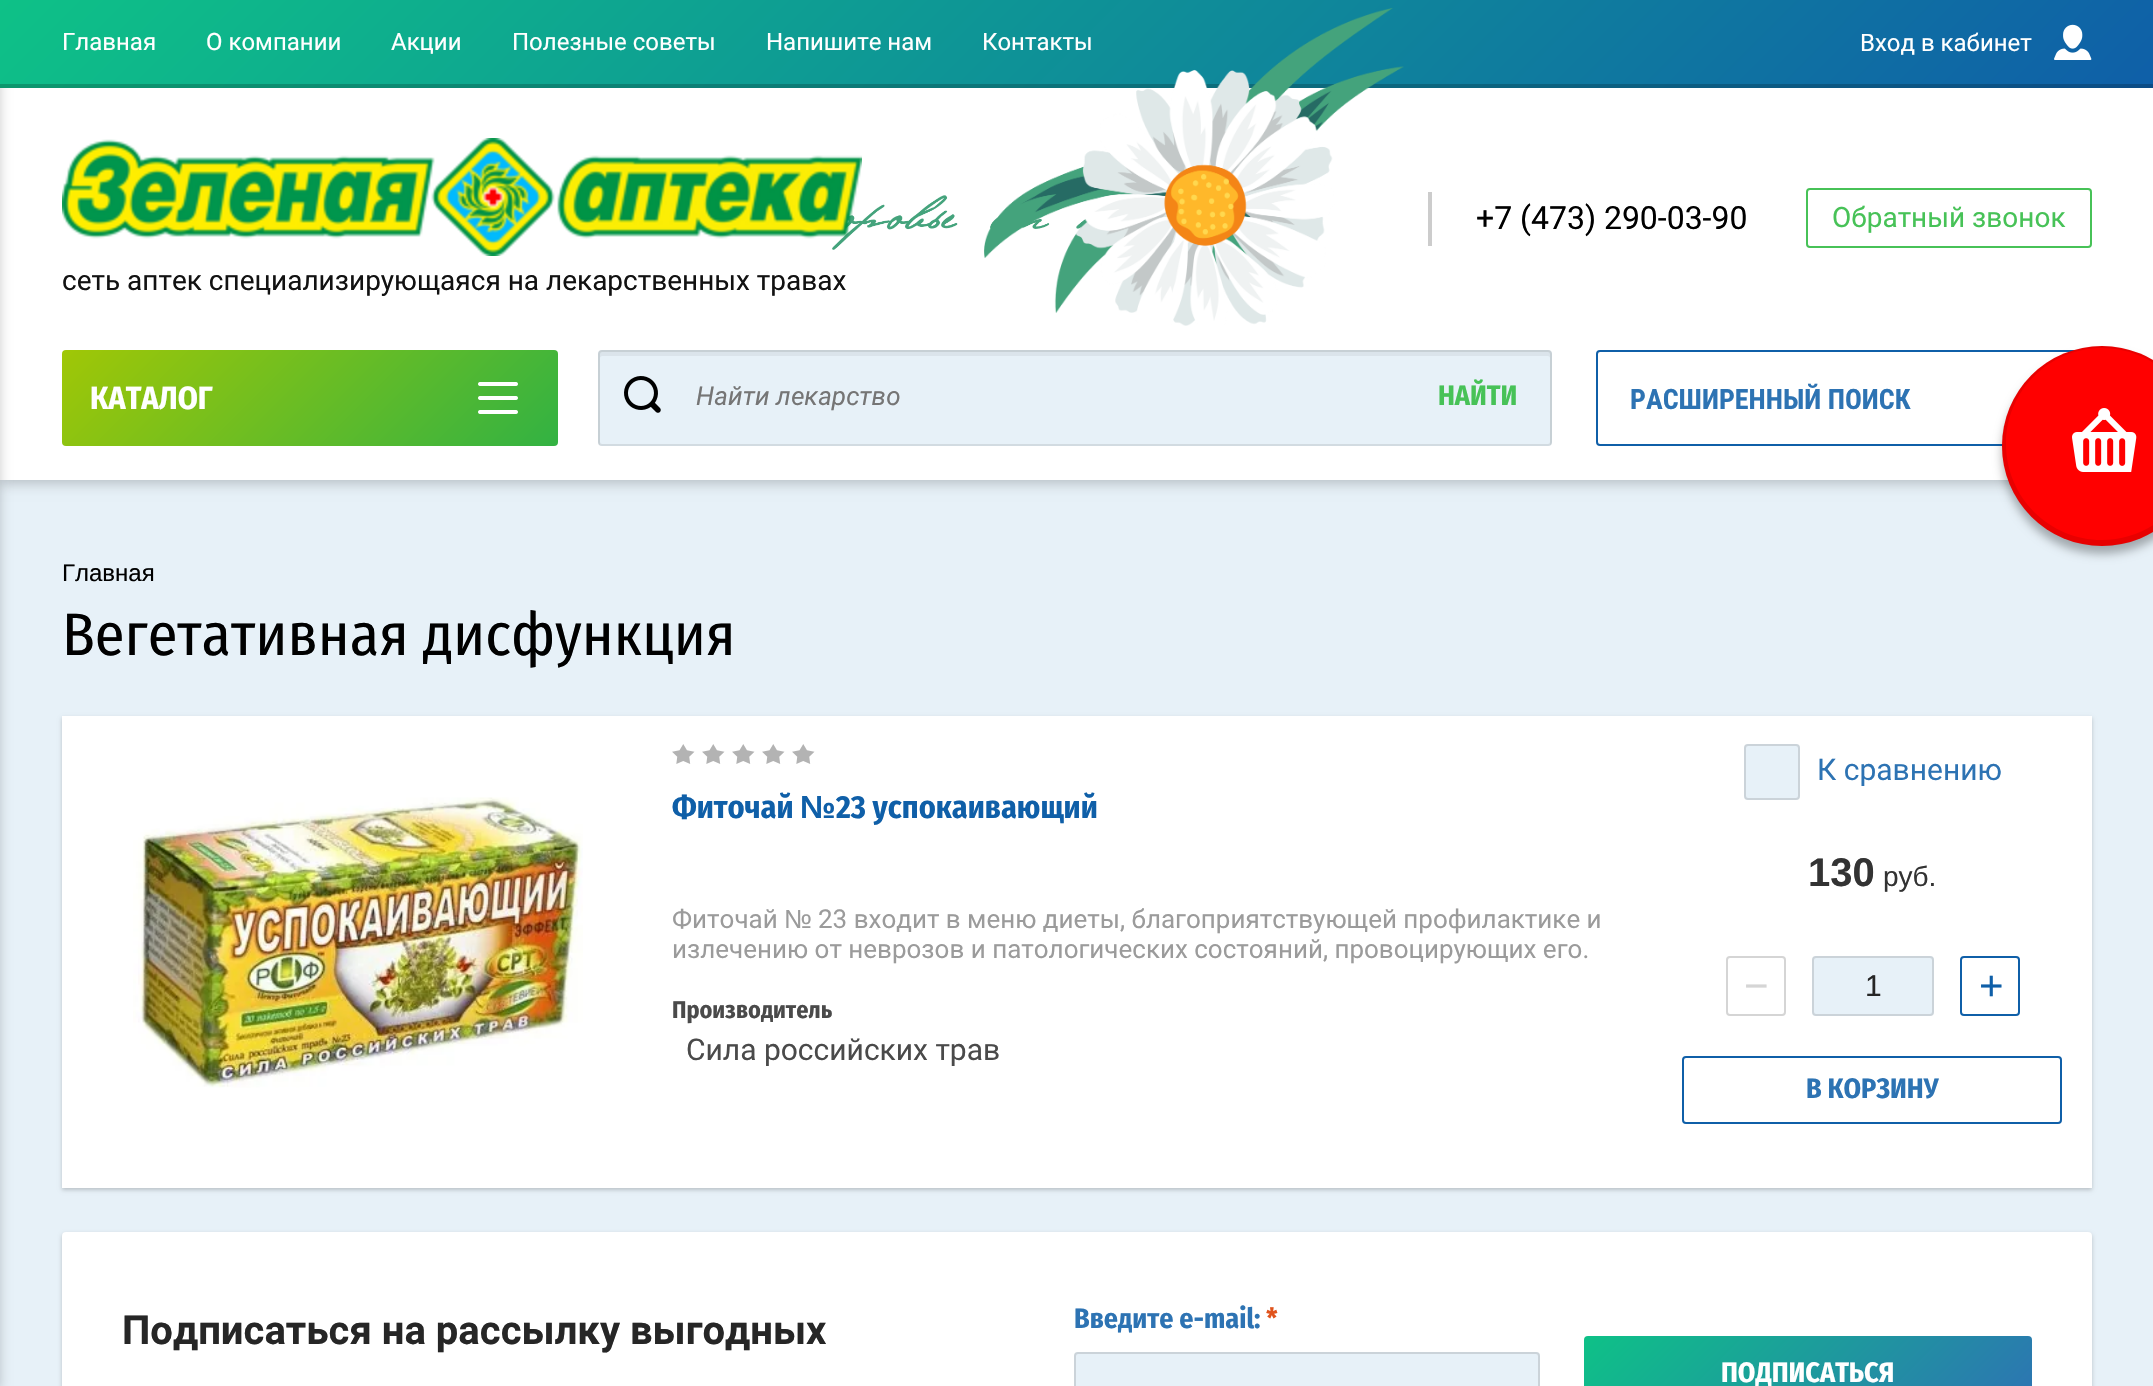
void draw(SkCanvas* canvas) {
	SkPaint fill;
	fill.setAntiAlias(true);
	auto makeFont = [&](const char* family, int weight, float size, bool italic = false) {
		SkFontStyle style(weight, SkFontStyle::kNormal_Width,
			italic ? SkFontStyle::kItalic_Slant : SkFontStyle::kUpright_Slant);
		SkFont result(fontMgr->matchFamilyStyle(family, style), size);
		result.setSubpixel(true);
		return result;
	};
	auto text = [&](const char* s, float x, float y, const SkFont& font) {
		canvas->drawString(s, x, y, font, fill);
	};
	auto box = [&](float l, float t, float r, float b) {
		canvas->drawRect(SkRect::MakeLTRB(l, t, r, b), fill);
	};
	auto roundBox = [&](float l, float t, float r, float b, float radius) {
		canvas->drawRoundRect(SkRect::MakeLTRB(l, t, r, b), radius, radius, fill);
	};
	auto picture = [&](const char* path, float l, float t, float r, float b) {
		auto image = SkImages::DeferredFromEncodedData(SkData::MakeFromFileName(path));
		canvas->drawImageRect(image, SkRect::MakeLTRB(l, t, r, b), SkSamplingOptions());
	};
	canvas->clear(0xFFE7F1F8);
	fill.setColor(0x33000000);
	fill.setMaskFilter(SkMaskFilter::MakeBlur(kNormal_SkBlurStyle, 6));
	canvas->drawRect(SkRect::MakeLTRB(0, 4, 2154, 484), fill);
	fill.setMaskFilter(nullptr);
	fill.setColor(0xFFFFFFFF);
	box(0, 88, 2153, 480);
	fill.setColor(0x33000000);
	fill.setMaskFilter(SkMaskFilter::MakeBlur(kNormal_SkBlurStyle, 6));
	canvas->drawRect(SkRect::MakeLTRB(-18, 4, 0, 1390), fill);
	fill.setMaskFilter(nullptr);
	{
		const SkColor colors[] = {0xFF0EC187, 0xFF0F5FA8};
		const float stops[] = {0, 1};
		const SkPoint ends[] = {{516, -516}, {1638, 605}};
		fill.setShader(SkGradientShader::MakeLinear(ends, colors, stops, 2, SkTileMode::kClamp));
		fill.setAlpha(255);
	}
	box(0, 0, 2153, 88);
	fill.setShader(nullptr);
	fill.setColor(0x33000000);
	box(0, 84, 2153, 88);
	picture("image0.png", 2054, 24, 2092, 60);
	picture("image2.png", 832, 195, 1087, 250);
	picture("image1.png", 984, 8, 1404, 326);
	fill.setColor(0xFFCCCCCC);
	box(1428, 192, 1432, 246);
	fill.setStyle(SkPaint::kStroke_Style);
	fill.setStrokeWidth(2);
	fill.setColor(0xFF47C257);
	canvas->drawRoundRect(SkRect::MakeLTRB(1807, 189, 2091, 247), 3, 3, fill);
	picture("image3.png", 62, 138, 862, 256);
	fill.setStyle(SkPaint::kFill_Style);
	{
		const SkColor colors[] = {0xFFA0C706, 0xFF32B243};
		const float stops[] = {0, 1};
		const SkPoint ends[] = {{162, 250}, {458, 546}};
		fill.setShader(SkGradientShader::MakeLinear(ends, colors, stops, 2, SkTileMode::kClamp));
		fill.setAlpha(255);
	}
	roundBox(62, 350, 558, 446, 4);
	picture("image4.png", 478, 382, 518, 414);
	fill.setShader(nullptr);
	fill.setColor(0xFFE7F1F8);
	roundBox(598, 350, 1552, 446, 4);
	fill.setStyle(SkPaint::kStroke_Style);
	fill.setColor(0x1A202020);
	canvas->drawRoundRect(SkRect::MakeLTRB(599, 351, 1551, 445), 3, 3, fill);
	fill.setStyle(SkPaint::kFill_Style);
	fill.setColor(0x0D000000);
	canvas->drawPath(SkPathBuilder().moveTo(602, 356).lineTo(1548, 356).cubicTo(1549, 356, 1550, 357, 1550, 358).lineTo(1550, 445).cubicTo(1551, 445, 1552, 443, 1552, 442).lineTo(1552, 354).cubicTo(1552, 352, 1550, 350, 1548, 350).lineTo(602, 350).cubicTo(600, 350, 598, 352, 598, 354).lineTo(598, 442).cubicTo(598, 443, 599, 445, 600, 445).lineTo(600, 358).cubicTo(600, 357, 601, 356, 602, 356).close().detach(), fill);
	picture("image5.png", 624, 376, 661, 413);
	fill.setStyle(SkPaint::kStroke_Style);
	fill.setColor(0xFF0F5FA8);
	canvas->drawRoundRect(SkRect::MakeLTRB(1597, 351, 2091, 445), 3, 3, fill);
	fill.setStyle(SkPaint::kFill_Style);
	fill.setColor(0x33000000);
	fill.setMaskFilter(SkMaskFilter::MakeBlur(kNormal_SkBlurStyle, 2));
	canvas->drawRect(SkRect::MakeLTRB(62, 718, 2092, 1190), fill);
	fill.setMaskFilter(nullptr);
	fill.setColor(0xFFFFFFFF);
	box(62, 716, 2092, 1188);
	picture("image6.png", 133, 797, 583, 1088);
	picture("image7.png", 672, 744, 815, 764);
	fill.setColor(0xFFE7F1F8);
	roundBox(1744, 744, 1800, 800, 4);
	fill.setStyle(SkPaint::kStroke_Style);
	fill.setColor(0x1F000000);
	canvas->drawRoundRect(SkRect::MakeLTRB(1745, 745, 1799, 799), 3, 3, fill);
	fill.setColor(0xFFD5D5D5);
	canvas->drawRoundRect(SkRect::MakeLTRB(1727, 957, 1785, 1015), 3, 3, fill);
	fill.setStyle(SkPaint::kFill_Style);
	fill.setColor(0xFFE7F1F8);
	roundBox(1812, 956, 1934, 1016, 4);
	fill.setStyle(SkPaint::kStroke_Style);
	fill.setColor(0x1F000000);
	canvas->drawRoundRect(SkRect::MakeLTRB(1813, 957, 1933, 1015), 3, 3, fill);
	fill.setColor(0xFF0F5FA8);
	canvas->drawRoundRect(SkRect::MakeLTRB(1961, 957, 2019, 1015), 3, 3, fill);
	canvas->drawRoundRect(SkRect::MakeLTRB(1683, 1057, 2061, 1123), 3, 3, fill);
	fill.setStyle(SkPaint::kFill_Style);
	fill.setColor(0x33000000);
	fill.setMaskFilter(SkMaskFilter::MakeBlur(kNormal_SkBlurStyle, 2));
	canvas->drawRoundRect(SkRect::MakeLTRB(62, 1234, 2092, 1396), 4, 4, fill);
	fill.setMaskFilter(nullptr);
	fill.setColor(0xFFFFFFFF);
	roundBox(62, 1232, 2092, 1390, 4);
	fill.setColor(0xFFE7F1F8);
	roundBox(1074, 1352, 1540, 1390, 4);
	fill.setStyle(SkPaint::kStroke_Style);
	fill.setColor(0x1F000000);
	canvas->drawRoundRect(SkRect::MakeLTRB(1075, 1353, 1539, 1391), 3, 3, fill);
	fill.setStyle(SkPaint::kFill_Style);
	{
		const SkColor colors[] = {0xFF0EC187, 0xFF2D73B3};
		const float stops[] = {0, 1};
		const SkPoint ends[] = {{1678, 1242}, {1938, 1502}};
		fill.setShader(SkGradientShader::MakeLinear(ends, colors, stops, 2, SkTileMode::kClamp));
		fill.setAlpha(255);
	}
	roundBox(1584, 1336, 2032, 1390, 4);
	fill.setShader(nullptr);
	fill.setColor(0x4D000000);
	fill.setMaskFilter(SkMaskFilter::MakeBlur(kNormal_SkBlurStyle, 5));
	canvas->drawRoundRect(SkRect::MakeLTRB(2002, 354, 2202, 554), 100, 100, fill);
	fill.setMaskFilter(nullptr);
	fill.setColor(0xFFFF0000);
	canvas->drawCircle(2102, 446, 100, fill);
	fill.setColor(0x17000000);
	canvas->drawPath(SkPathBuilder(SkPathFillType::kEvenOdd).moveTo(2102, 346).cubicTo(2047, 346, 2002, 391, 2002, 446).cubicTo(2002, 501, 2047, 546, 2102, 546).cubicTo(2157, 546, 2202, 501, 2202, 446).cubicTo(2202, 391, 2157, 346, 2102, 346).close().moveTo(2102, 348).cubicTo(2049, 348, 2006, 391, 2006, 444).cubicTo(2006, 497, 2049, 540, 2102, 540).cubicTo(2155, 540, 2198, 497, 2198, 444).cubicTo(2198, 391, 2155, 348, 2102, 348).close().detach(), fill);
	picture("image8.png", 2072, 408, 2137, 472);
	auto font1 = makeFont("Roboto", 400, 24);
	fill.setColor(0xFFFFFFFF);
	text("Главная", 62, 50, font1);
	text("О компании", 206, 50, font1);
	text("Акции", 391, 50, font1);
	text("Полезные советы", 512, 50, font1);
	text("Напишите нам", 766, 50, font1);
	text("Контакты", 982, 50, font1);
	text("Вход в кабинет", 1860, 51, font1);
	auto font2 = makeFont("Roboto", 400, 32);
	fill.setColor(0xFF000000);
	text("+7 (473) 290-03-90", 1476, 229, font2);
	auto font3 = makeFont("Roboto", 400, 28);
	fill.setColor(0xFF47C257);
	text("Обратный звонок", 1832, 227, font3);
	fill.setColor(0xFF121212);
	text("сеть аптек специализирующаяся на лекарственных травах", 62, 290, font3);
	auto font4 = makeFont("Fira Sans Condensed", 700, 32);
	fill.setColor(0xFFFFFFFF);
	text("КАТАЛОГ", 90, 409, font4);
	auto font5 = makeFont("Roboto", 400, 26, true);
	fill.setColor(0xFF757575);
	text("Найти лекарство", 696, 405, font5);
	auto font6 = makeFont("Fira Sans Condensed", 700, 28);
	fill.setColor(0xFF47C257);
	text("НАЙТИ", 1438, 405, font6);
	auto font7 = makeFont("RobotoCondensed", 700, 28);
	fill.setColor(0xFF2D73B3);
	text("РАСШИРЕННЫЙ ПОИСК", 1630, 409, font7);
	auto font8 = makeFont("Liberation Sans", 400, 24);
	fill.setColor(0xFF000000);
	text("Главная", 62, 581, font8);
	auto font9 = makeFont("Fira Sans Condensed", 400, 60);
	text("Вегетативная дисфункция", 62, 655, font9);
	fill.setColor(0xFF0F5FA8);
	text("Фиточай", 672, 818, font4);
	auto font10 = makeFont("Liberation Sans", 700, 32);
	text("№", 800, 818, font10);
	text("23 успокаивающий", 836, 818, font4);
	auto font11 = makeFont("Roboto", 400, 26);
	fill.setColor(0xFF9B9B9B);
	text("Фиточай", 672, 928, font11);
	auto font12 = makeFont("Liberation Sans", 400, 26);
	text("№", 784, 928, font12);
	text("23 входит в меню диеты, благоприятствующей профилактике и", 818, 928, font11);
	text("излечению от неврозов и патологических состояний, провоцирующих его.", 672, 958, font11);
	auto font13 = makeFont("Fira Sans Condensed", 700, 24);
	fill.setColor(0xFF4A4A4A);
	text("Производитель", 672, 1018, font13);
	auto font14 = makeFont("Roboto", 400, 30);
	text("Сила российских трав", 686, 1060, font14);
	fill.setColor(0xFF2D73B3);
	text("К сравнению", 1817, 780, font14);
	auto font15 = makeFont("Liberation Sans", 700, 40);
	fill.setColor(0xFF333333);
	text("130", 1808, 886, font15);
	auto font16 = makeFont("Liberation Sans", 400, 28);
	text("руб.", 1883, 886, font16);
	auto font17 = makeFont("Liberation Sans", 400, 42);
	fill.setColor(0xFFD5D5D5);
	text("−", 1744, 1000, font17);
	auto font18 = makeFont("Liberation Sans", 400, 30);
	fill.setColor(0xFF262626);
	text("1", 1865, 996, font18);
	fill.setColor(0xFF0F5FA8);
	text("+", 1979, 1000, font17);
	fill.setColor(0xFF2D73B3);
	text("В КОРЗИНУ", 1806, 1098, font6);
	auto font19 = makeFont("Roboto", 700, 40);
	fill.setColor(0xFF262626);
	text("Подписаться на рассылку выгодных", 122, 1344, font19);
	fill.setColor(0xFF2D73B3);
	text("Введите e-mail:", 1074, 1328, font6);
	fill.setColor(0xFFE0531C);
	text("*", 1266, 1328, font6);
	fill.setColor(0xFFFFFFFF);
	text("ПОДПИСАТЬСЯ", 1721, 1382, font6);
}
